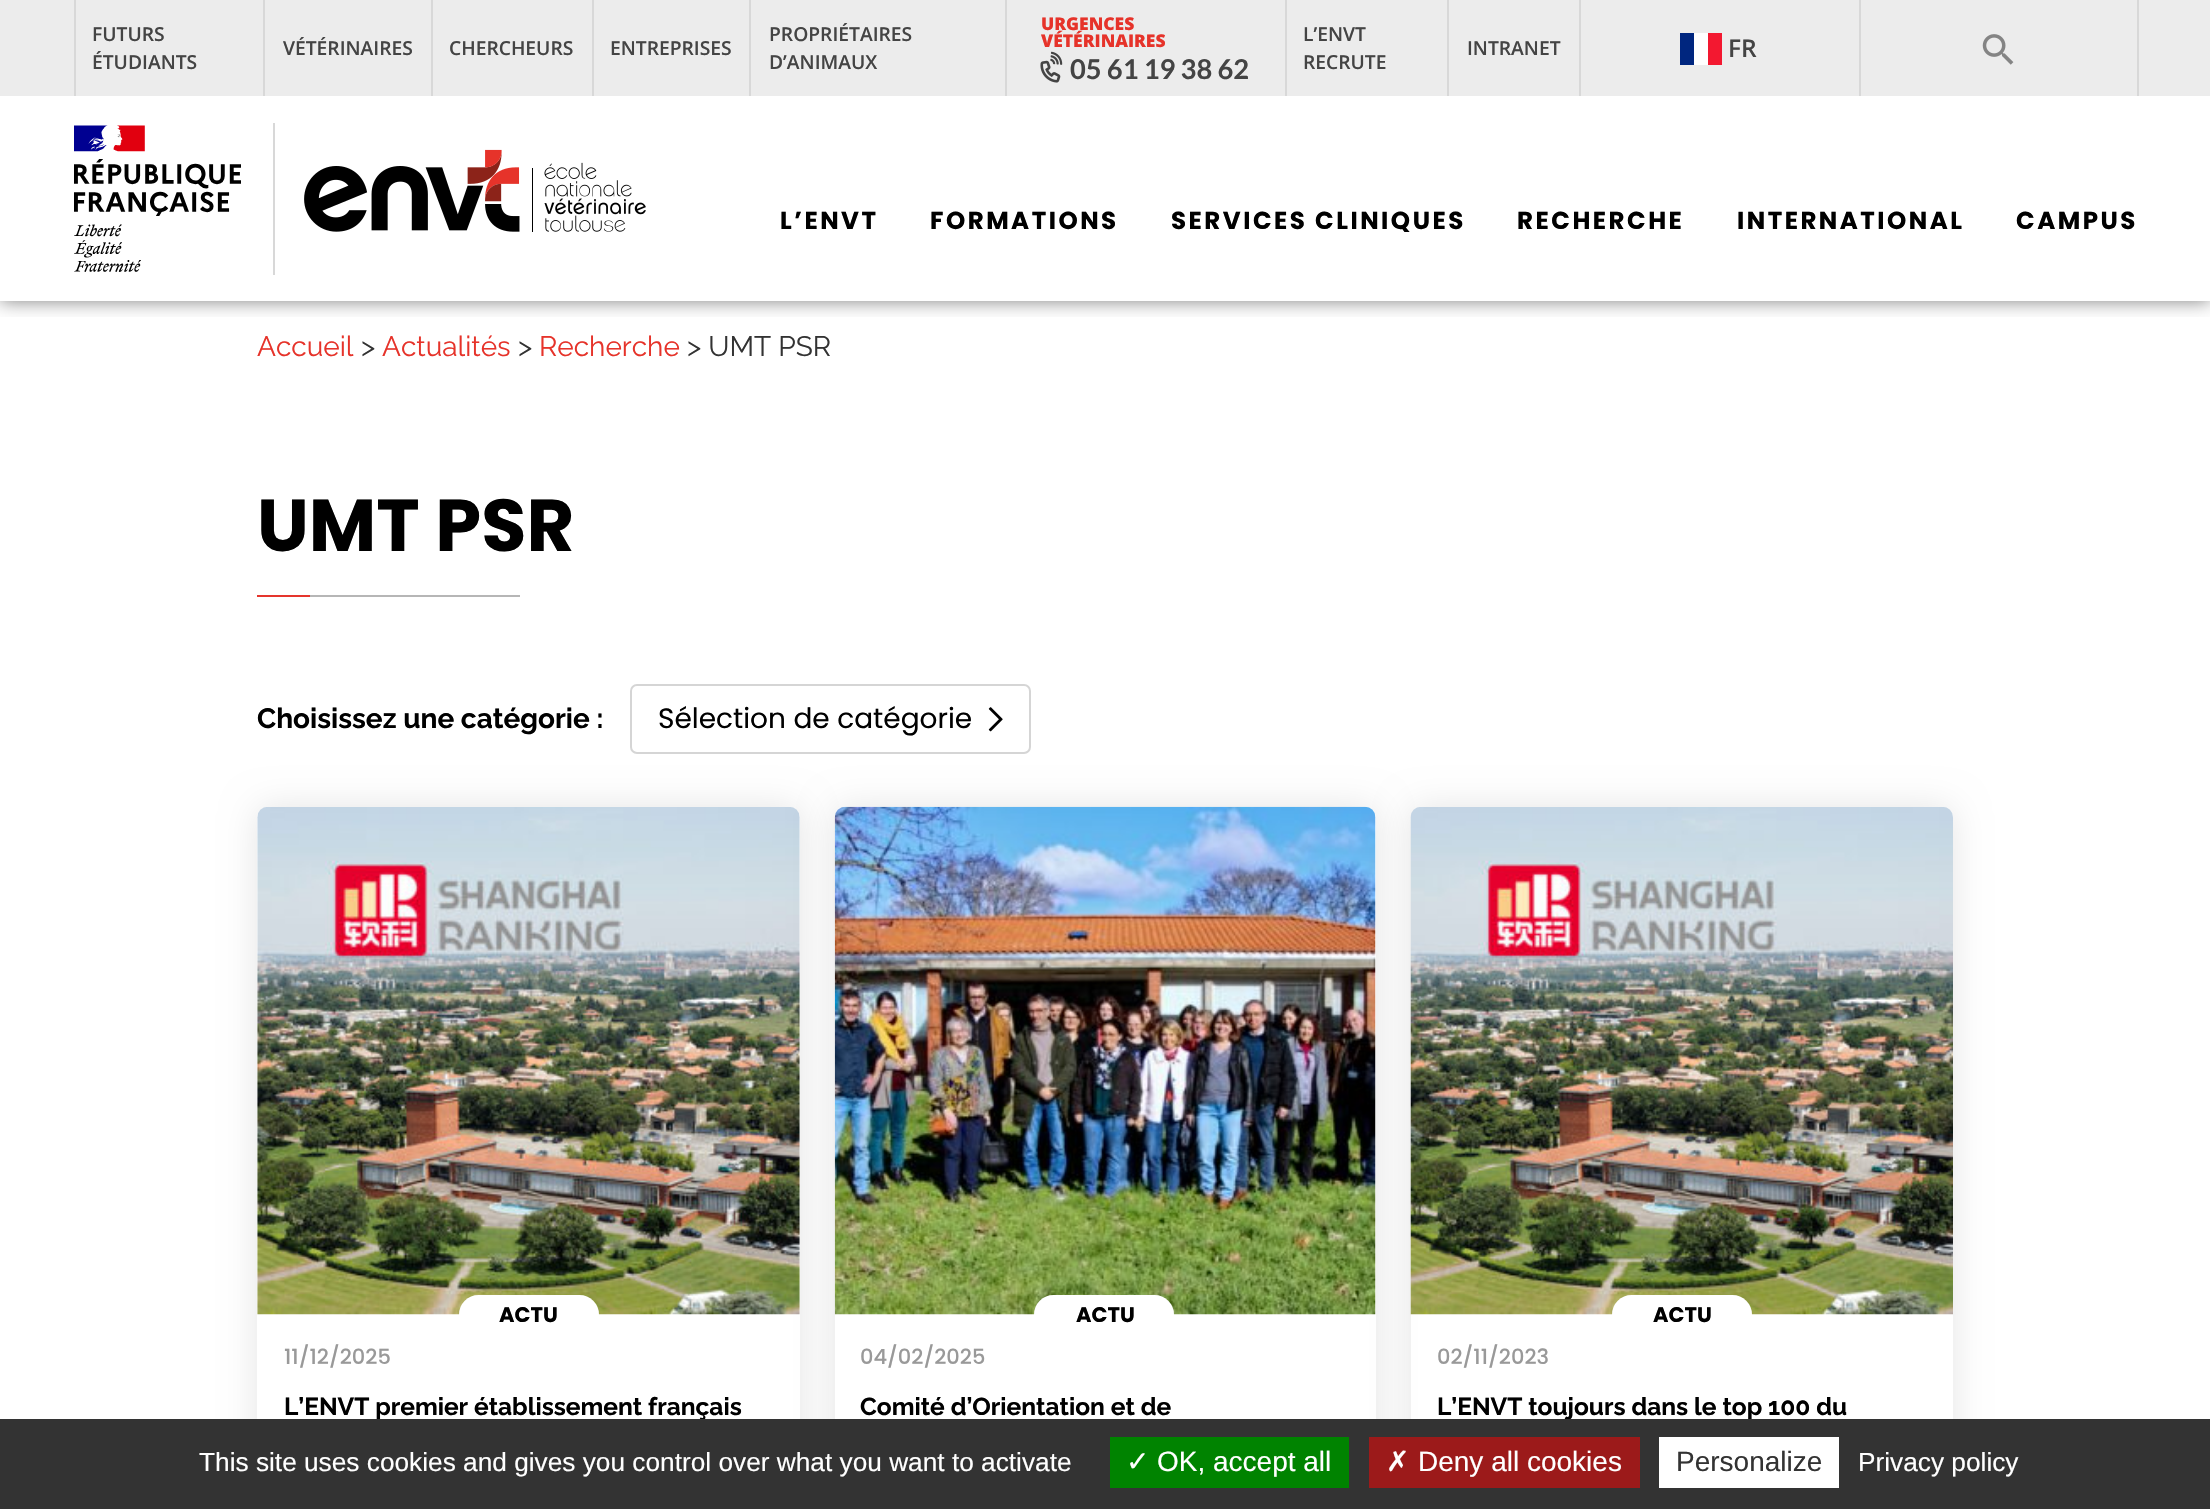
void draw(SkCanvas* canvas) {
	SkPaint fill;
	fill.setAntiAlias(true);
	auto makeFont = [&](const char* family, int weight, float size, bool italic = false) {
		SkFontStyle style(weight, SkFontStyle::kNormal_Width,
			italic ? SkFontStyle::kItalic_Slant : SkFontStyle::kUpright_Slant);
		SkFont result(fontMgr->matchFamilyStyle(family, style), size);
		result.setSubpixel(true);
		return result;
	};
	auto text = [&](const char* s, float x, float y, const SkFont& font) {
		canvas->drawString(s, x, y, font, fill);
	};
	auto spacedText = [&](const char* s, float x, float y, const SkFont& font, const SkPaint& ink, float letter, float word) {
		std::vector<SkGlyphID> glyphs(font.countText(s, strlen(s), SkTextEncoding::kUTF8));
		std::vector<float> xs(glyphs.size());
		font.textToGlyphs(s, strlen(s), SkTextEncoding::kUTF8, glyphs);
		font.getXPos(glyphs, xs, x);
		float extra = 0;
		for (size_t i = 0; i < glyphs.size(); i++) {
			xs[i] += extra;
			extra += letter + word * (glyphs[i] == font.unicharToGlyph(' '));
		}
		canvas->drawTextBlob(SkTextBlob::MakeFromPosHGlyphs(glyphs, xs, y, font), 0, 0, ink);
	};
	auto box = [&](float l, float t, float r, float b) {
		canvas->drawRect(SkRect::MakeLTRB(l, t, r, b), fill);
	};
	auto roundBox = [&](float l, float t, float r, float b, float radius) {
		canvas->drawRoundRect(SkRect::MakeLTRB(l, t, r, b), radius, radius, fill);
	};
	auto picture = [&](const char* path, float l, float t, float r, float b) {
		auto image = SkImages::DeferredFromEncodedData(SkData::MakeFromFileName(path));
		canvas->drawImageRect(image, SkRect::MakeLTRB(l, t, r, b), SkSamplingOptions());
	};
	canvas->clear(0xFFFFFFFF);
	canvas->save();
	canvas->clipRect(SkRect::MakeLTRB(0, 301, 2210, 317));
	fill.setColor(0x80000000);
	fill.setMaskFilter(SkMaskFilter::MakeBlur(kNormal_SkBlurStyle, 9));
	canvas->drawRect(SkRect::MakeLTRB(0, 0, 2210, 301), fill);
	fill.setMaskFilter(nullptr);
	canvas->restore();
	fill.setColor(0xFFECECEC);
	box(0, 0, 2210, 96);
	fill.setColor(0xFFD8D8D8);
	box(74, 0, 76, 96);
	box(263, 0, 265, 96);
	box(431, 0, 433, 96);
	box(592, 0, 594, 96);
	box(749, 0, 751, 96);
	box(1005, 0, 1007, 96);
	picture("image0.png", 1040, 51, 1063, 83);
	box(1285, 0, 1287, 96);
	box(1447, 0, 1449, 96);
	box(1579, 0, 1581, 96);
	fill.setColor(0xFF00267F);
	box(1680, 33, 1694, 65);
	fill.setColor(0xFFFFFFFF);
	box(1694, 33, 1708, 65);
	fill.setColor(0xFFF31830);
	box(1708, 33, 1722, 65);
	fill.setColor(0xFFD8D8D8);
	box(2137, 0, 2139, 96);
	box(1859, 0, 1861, 96);
	picture("image1.png", 1982, 34, 2014, 65);
	box(273, 123, 275, 275);
	picture("image2.png", 74, 125, 241, 272);
	picture("image3.png", 304, 149, 646, 232);
	fill.setColor(0xFFE5352D);
	box(257, 595, 310, 597);
	fill.setColor(0xFFB6B6B6);
	box(310, 595, 520, 597);
	fill.setColor(0x1A000000);
	fill.setMaskFilter(SkMaskFilter::MakeBlur(kNormal_SkBlurStyle, 17.5f));
	canvas->drawRoundRect(SkRect::MakeLTRB(257, 807, 800, 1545), 11, 11, fill);
	fill.setMaskFilter(nullptr);
	fill.setColor(0xFFFFFFFF);
	roundBox(257, 807, 800, 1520, 11);
	picture("image5.png", 257, 807, 800, 1315);
	fill.setColor(0x1A000000);
	fill.setMaskFilter(SkMaskFilter::MakeBlur(kNormal_SkBlurStyle, 17.5f));
	canvas->drawRoundRect(SkRect::MakeLTRB(835, 807, 1376, 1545), 11, 11, fill);
	fill.setMaskFilter(nullptr);
	fill.setStyle(SkPaint::kStroke_Style);
	fill.setStrokeWidth(2);
	fill.setColor(0xFFD5D5D5);
	canvas->drawRoundRect(SkRect::MakeLTRB(631, 685, 1030, 753), 6, 6, fill);
	picture("image4.png", 988, 707, 1003, 732);
	fill.setStyle(SkPaint::kFill_Style);
	fill.setColor(0xFFFFFFFF);
	roundBox(459, 1295, 599, 1334, 19.5f);
	roundBox(835, 807, 1376, 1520, 11);
	picture("image6.png", 834, 806, 1376, 1315);
	roundBox(1034, 1295, 1174, 1334, 19.5f);
	canvas->save();
	canvas->clipPath(SkPathBuilder(SkPathFillType::kEvenOdd).moveTo(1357, 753).lineTo(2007, 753).lineTo(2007, 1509).lineTo(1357, 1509).close().moveTo(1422, 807).lineTo(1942, 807).cubicTo(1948, 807, 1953, 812, 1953, 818).lineTo(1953, 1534).cubicTo(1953, 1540, 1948, 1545, 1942, 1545).lineTo(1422, 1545).cubicTo(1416, 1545, 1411, 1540, 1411, 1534).lineTo(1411, 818).cubicTo(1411, 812, 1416, 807, 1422, 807).close().detach(), true);
	fill.setColor(0x1A000000);
	fill.setMaskFilter(SkMaskFilter::MakeBlur(kNormal_SkBlurStyle, 17.5f));
	canvas->drawRoundRect(SkRect::MakeLTRB(1411, 807, 1953, 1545), 11, 11, fill);
	fill.setMaskFilter(nullptr);
	canvas->restore();
	picture("image7.png", 1410, 807, 1953, 1315);
	fill.setColor(0xFFFFFFFF);
	roundBox(1612, 1295, 1752, 1334, 19.5f);
	auto font1 = makeFont("Open Sans", 600, 19.25f);
	fill.setColor(0xFF444444);
	text("FUTURS", 92, 41, font1);
	text("ÉTUDIANTS", 92, 69, font1);
	text("VÉTÉRINAIRES", 283, 55, font1);
	text("CHERCHEURS", 449, 55, font1);
	text("ENTREPRISES", 610, 55, font1);
	text("PROPRIÉTAIRES", 769, 41, font1);
	text("D’ANIMAUX", 769, 69, font1);
	auto font2 = makeFont("Open Sans", 800, 17.5f);
	fill.setColor(0xFFE6332A);
	text("URGENCES", 1041, 30, font2);
	text("VÉTÉRINAIRES", 1041, 47, font2);
	auto font3 = makeFont("Lato", 700, 27.25f);
	fill.setColor(0xFF444444);
	text("05 61 19 38 62", 1070, 79, font3);
	text("L’ENVT", 1303, 41, font1);
	text("RECRUTE", 1303, 69, font1);
	text("INTRANET", 1467, 55, font1);
	auto font4 = makeFont("Open Sans", 600, 24.5f);
	text("FR", 1728, 57, font4);
	auto font5 = makeFont("Poppins", 700, 24.5f);
	fill.setColor(0xFF000000);
	spacedText("L’ENVT", 780, 229, font5, fill, 2.5f, 0);
	spacedText("FORMATIONS", 930, 229, font5, fill, 2.5f, 0);
	spacedText("SERVICES CLINIQUES", 1171, 229, font5, fill, 2.5f, 0);
	spacedText("RECHERCHE", 1517, 229, font5, fill, 2.5f, 0);
	spacedText("INTERNATIONAL", 1737, 229, font5, fill, 2.5f, 0);
	spacedText("CAMPUS", 2016, 229, font5, fill, 2.5f, 0);
	auto font6 = makeFont("Raleway", 400, 28);
	fill.setColor(0xFFE6332A);
	text("Accueil", 257, 356, font6);
	fill.setColor(0xFF333333);
	text(">", 361, 356, font6);
	fill.setColor(0xFFE6332A);
	text("Actualités", 382, 356, font6);
	fill.setColor(0xFF333333);
	text(">", 518, 356, font6);
	fill.setColor(0xFFE6332A);
	text("Recherche", 539, 356, font6);
	fill.setColor(0xFF333333);
	text("> UMT PSR", 687, 356, font6);
	auto font7 = makeFont("Poppins", 700, 73.5f);
	fill.setColor(0xFF000000);
	text("UMT PSR", 257, 551, font7);
	auto font8 = makeFont("Raleway", 700, 28);
	text("Choisissez une catégorie :", 257, 728, font8);
	auto font9 = makeFont("Poppins", 400, 28);
	text("Sélection de catégorie", 658, 728, font9);
	auto font10 = makeFont("Poppins", 700, 21);
	text("ACTU", 499, 1322, font10);
	auto font11 = makeFont("Poppins", 500, 21);
	fill.setColor(0xFF999999);
	text("11/12/2025", 284, 1364, font11);
	auto font12 = makeFont("Raleway", 700, 24.5f);
	fill.setColor(0xFF000000);
	text("L’ENVT premier établissement français", 284, 1415, font12);
	text("ACTU", 1076, 1322, font10);
	fill.setColor(0xFF999999);
	text("04/02/2025", 860, 1364, font11);
	fill.setColor(0xFF000000);
	text("Comité d’Orientation et de", 860, 1415, font12);
	text("ACTU", 1653, 1322, font10);
	fill.setColor(0xFF999999);
	text("02/11/2023", 1437, 1364, font11);
	fill.setColor(0xFF000000);
	text("L’ENVT toujours dans le top 100 du", 1437, 1415, font12);
	fill.setColor(0xFF333333);
	box(0, 1419, 2210, 1509);
	auto font13 = makeFont("Liberation Sans", 400, 26.25f);
	fill.setColor(0xFFFFFFFF);
	text("This site uses cookies and gives you control over what you want to activate", 199, 1471, font13);
	fill.setColor(0xFF008300);
	box(1110, 1437, 1349, 1488);
	auto font14 = makeFont("DejaVu Sans", 400, 28);
	fill.setColor(0xFFFFFFFF);
	text("✓", 1126, 1471, font14);
	auto font15 = makeFont("Liberation Sans", 400, 28);
	text("OK, accept all", 1157, 1471, font15);
	fill.setColor(0xFF9C1A1A);
	box(1369, 1437, 1640, 1488);
	fill.setColor(0xFFFFFFFF);
	text("✗", 1386, 1471, font14);
	text("Deny all cookies", 1418, 1471, font15);
	box(1659, 1437, 1839, 1488);
	fill.setColor(0xFF333333);
	text("Personalize", 1676, 1471, font15);
	fill.setColor(0xFFFFFFFF);
	text("Privacy policy", 1858, 1471, font13);
}
